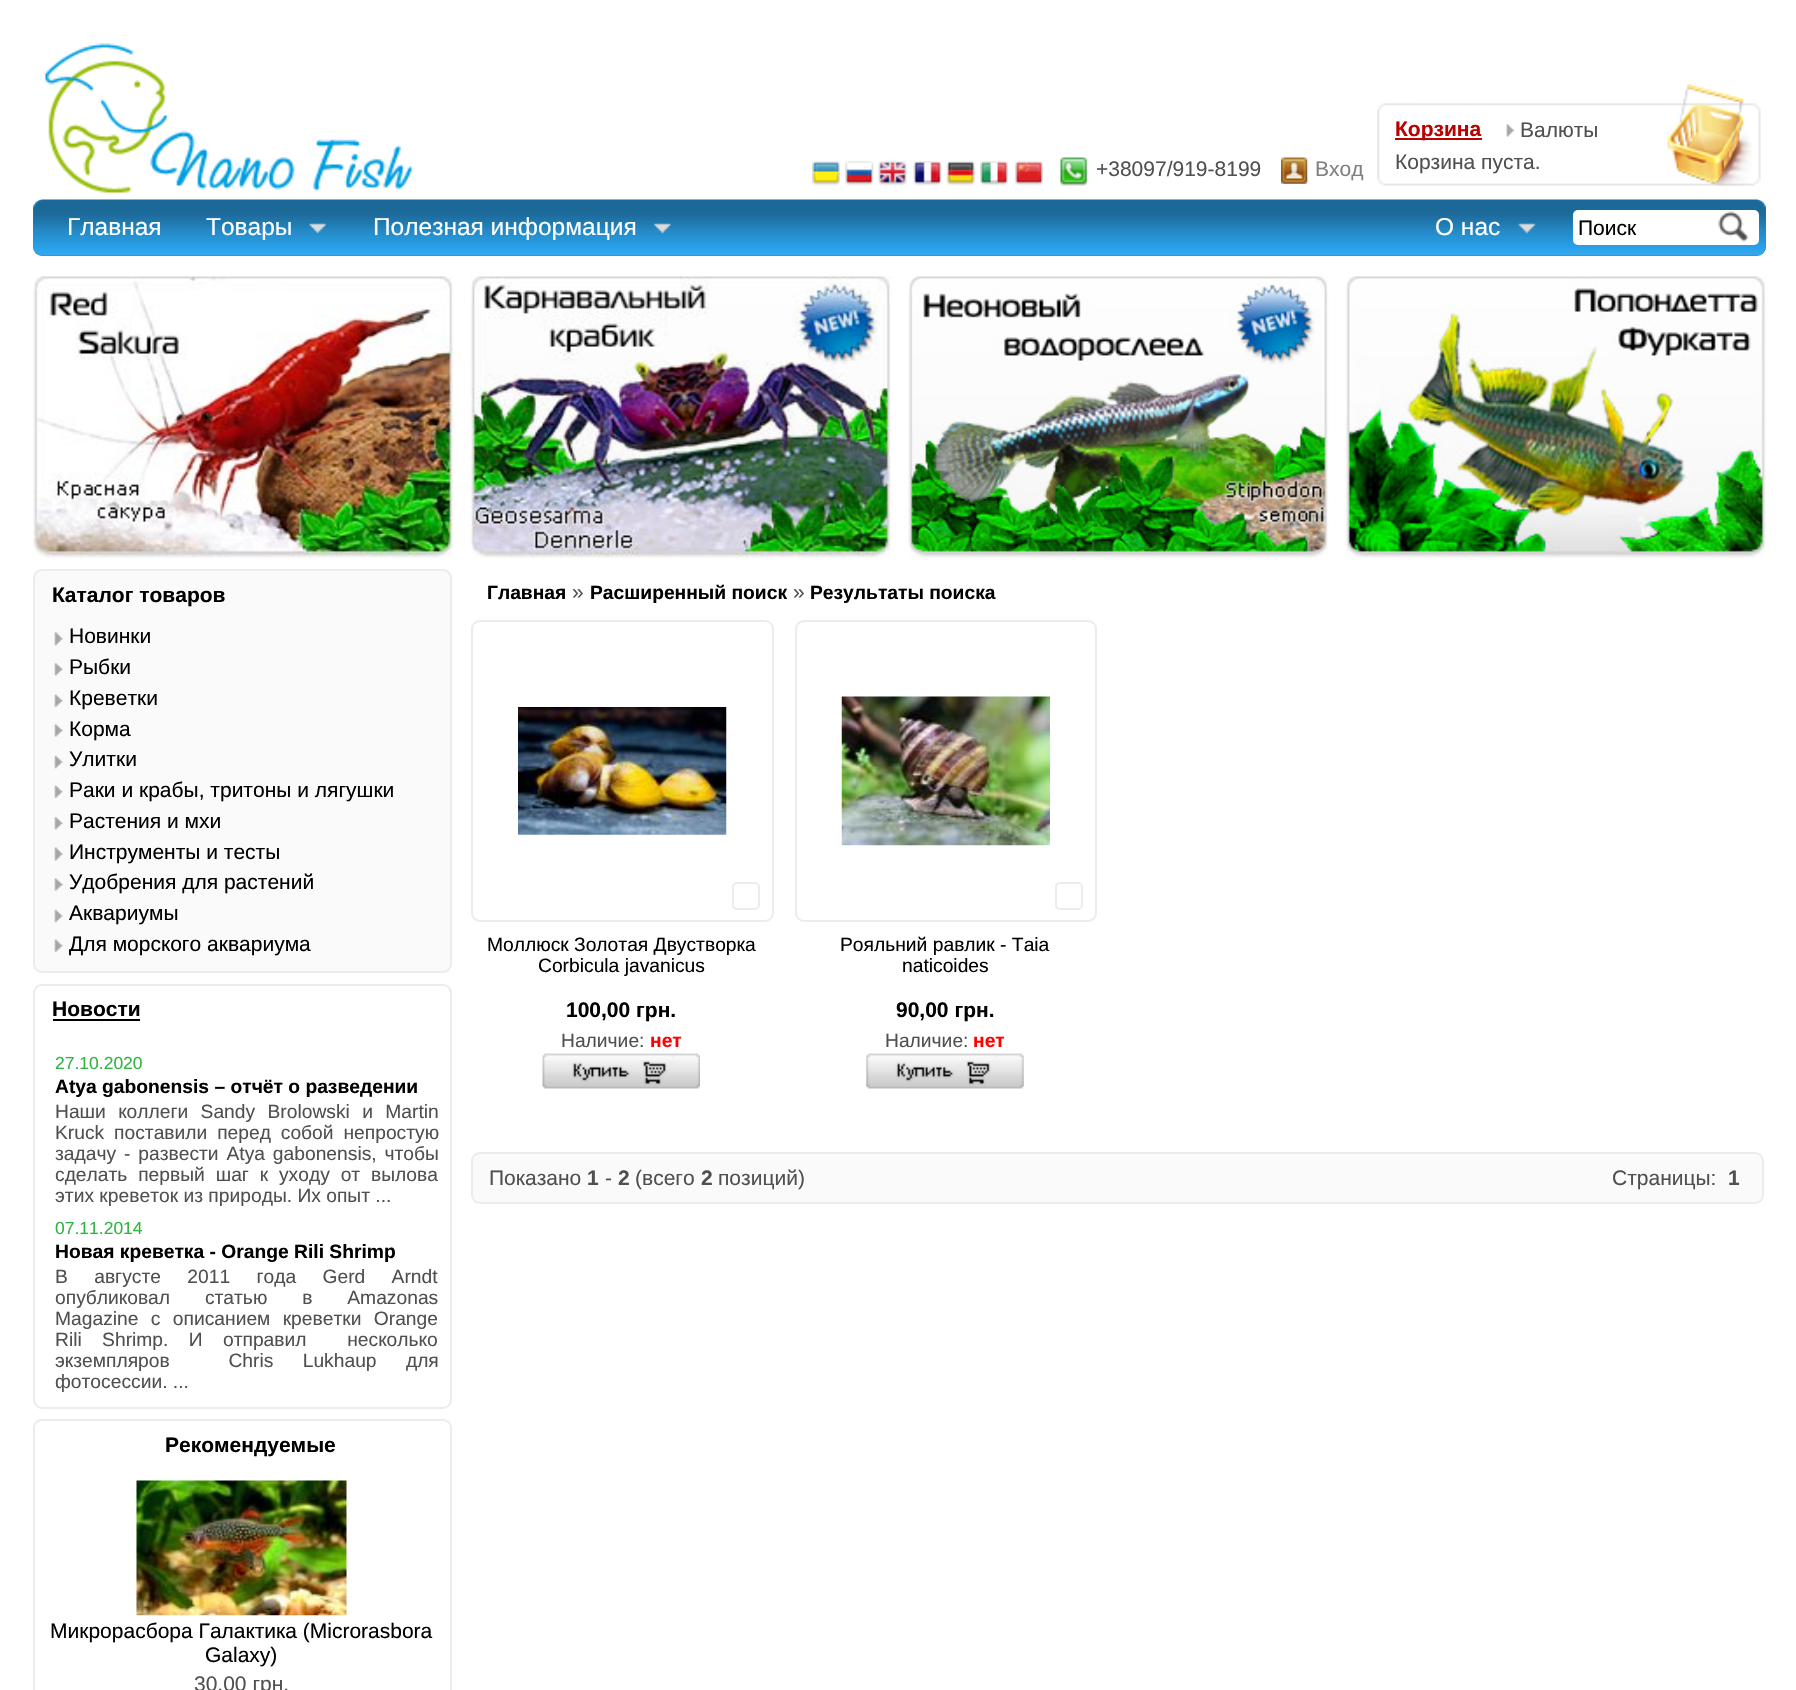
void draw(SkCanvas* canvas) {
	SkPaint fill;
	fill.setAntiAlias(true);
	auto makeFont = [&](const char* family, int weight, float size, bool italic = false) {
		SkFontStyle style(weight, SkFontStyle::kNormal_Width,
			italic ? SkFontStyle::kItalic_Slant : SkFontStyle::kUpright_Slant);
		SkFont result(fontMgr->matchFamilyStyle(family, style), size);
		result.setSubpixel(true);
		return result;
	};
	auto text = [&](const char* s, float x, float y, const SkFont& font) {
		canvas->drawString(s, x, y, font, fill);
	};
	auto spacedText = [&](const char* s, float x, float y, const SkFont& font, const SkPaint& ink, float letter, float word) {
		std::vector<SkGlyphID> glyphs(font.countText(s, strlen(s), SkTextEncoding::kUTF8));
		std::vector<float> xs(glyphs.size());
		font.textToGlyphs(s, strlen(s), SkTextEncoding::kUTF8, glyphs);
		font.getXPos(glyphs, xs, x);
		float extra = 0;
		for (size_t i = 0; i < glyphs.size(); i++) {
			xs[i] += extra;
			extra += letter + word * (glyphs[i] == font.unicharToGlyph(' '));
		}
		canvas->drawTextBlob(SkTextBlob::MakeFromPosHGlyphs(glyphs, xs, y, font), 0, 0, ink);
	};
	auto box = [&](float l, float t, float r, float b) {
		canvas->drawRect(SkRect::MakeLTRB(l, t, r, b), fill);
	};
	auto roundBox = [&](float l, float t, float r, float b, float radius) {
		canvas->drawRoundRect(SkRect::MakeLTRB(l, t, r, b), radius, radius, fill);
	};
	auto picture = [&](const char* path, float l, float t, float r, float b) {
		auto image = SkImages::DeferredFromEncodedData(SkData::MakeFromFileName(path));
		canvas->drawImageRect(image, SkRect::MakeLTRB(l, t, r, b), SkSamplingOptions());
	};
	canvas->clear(0xFFFFFFFF);
	picture("image0.png", 45, 43, 414, 193);
	picture("image1.png", 1377, 103, 1761, 186);
	fill.setColor(0xFFBB0000);
	box(1395, 138, 1482, 140);
	picture("image2.png", 1667, 83, 1752, 187);
	picture("image3.png", 1506, 124, 1515, 137);
	picture("image4.png", 812, 161, 840, 186);
	picture("image5.png", 845, 161, 874, 186);
	picture("image6.png", 878, 161, 907, 186);
	picture("image7.png", 913, 161, 942, 186);
	picture("image8.png", 946, 161, 975, 186);
	picture("image9.png", 980, 161, 1008, 186);
	picture("image10.png", 1015, 161, 1043, 186);
	picture("image11.png", 1060, 157, 1088, 186);
	picture("image12.png", 1281, 157, 1308, 184);
	fill.setColor(0xFF268BC7);
	roundBox(33, 200, 1766, 256, 9);
	picture("image13.png", 33, 199, 1766, 256);
	picture("image14.png", 309, 223, 326, 234);
	picture("image15.png", 654, 223, 671, 234);
	picture("image16.png", 1518, 223, 1536, 234);
	fill.setColor(0xFFFFFFFF);
	roundBox(1573, 210, 1759, 245, 5);
	picture("image17.png", 1718, 211, 1749, 242);
	picture("image18.png", 33, 276, 454, 558);
	picture("image19.png", 470, 276, 891, 558);
	picture("image20.png", 908, 276, 1329, 558);
	picture("image21.png", 1345, 276, 1766, 558);
	fill.setColor(0xFFFAFAFA);
	canvas->drawRoundRect(SkRect::MakeLTRB(34, 570, 451, 972), 8, 8, fill);
	fill.setStyle(SkPaint::kStroke_Style);
	fill.setStrokeWidth(2);
	fill.setColor(0xFFECECE8);
	canvas->drawRoundRect(SkRect::MakeLTRB(34, 570, 451, 972), 8, 8, fill);
	picture("image22.png", 54, 631, 63, 646);
	picture("image23.png", 54, 663, 63, 676);
	picture("image24.png", 54, 694, 63, 707);
	picture("image25.png", 54, 724, 63, 737);
	picture("image26.png", 54, 755, 63, 769);
	picture("image24.png", 54, 785, 63, 798);
	picture("image23.png", 54, 817, 63, 830);
	picture("image27.png", 54, 847, 63, 861);
	picture("image25.png", 54, 878, 63, 891);
	picture("image26.png", 54, 909, 63, 923);
	picture("image24.png", 54, 939, 63, 952);
	canvas->drawRoundRect(SkRect::MakeLTRB(34, 985, 451, 1408), 8, 8, fill);
	fill.setStyle(SkPaint::kFill_Style);
	fill.setColor(0xFF000000);
	box(53, 1019, 140, 1021);
	fill.setColor(0xFFECECE8);
	canvas->drawPath(SkPathBuilder(SkPathFillType::kEvenOdd).moveTo(42, 1419).lineTo(443, 1419).cubicTo(448, 1419, 452, 1423, 452, 1428).lineTo(452, 1470).lineTo(33, 1470).lineTo(33, 1428).cubicTo(33, 1423, 37, 1419, 42, 1419).close().moveTo(42, 1421).lineTo(443, 1421).cubicTo(447, 1421, 450, 1424, 450, 1428).lineTo(450, 1470).lineTo(35, 1470).lineTo(35, 1428).cubicTo(35, 1424, 38, 1421, 42, 1421).close().detach(), fill);
	canvas->drawPath(SkPathBuilder(SkPathFillType::kEvenOdd).moveTo(33, 1470).lineTo(452, 1470).lineTo(452, 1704).cubicTo(452, 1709, 448, 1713, 443, 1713).lineTo(42, 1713).cubicTo(37, 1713, 33, 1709, 33, 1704).close().moveTo(35, 1470).lineTo(450, 1470).lineTo(450, 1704).cubicTo(450, 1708, 447, 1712, 443, 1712).lineTo(42, 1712).cubicTo(38, 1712, 35, 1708, 35, 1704).close().detach(), fill);
	picture("image28.png", 136, 1480, 347, 1616);
	fill.setStyle(SkPaint::kStroke_Style);
	canvas->drawRoundRect(SkRect::MakeLTRB(472, 621, 773, 921), 8, 8, fill);
	picture("image29.png", 518, 707, 727, 835);
	canvas->drawRoundRect(SkRect::MakeLTRB(733, 883, 759, 909), 4, 4, fill);
	picture("image30.png", 542, 1053, 700, 1089);
	canvas->drawRoundRect(SkRect::MakeLTRB(796, 621, 1096, 921), 8, 8, fill);
	picture("image31.png", 841, 696, 1050, 846);
	canvas->drawRoundRect(SkRect::MakeLTRB(1056, 883, 1082, 909), 4, 4, fill);
	picture("image32.png", 866, 1053, 1024, 1089);
	fill.setStyle(SkPaint::kFill_Style);
	fill.setColor(0xFFFAFAFA);
	canvas->drawRoundRect(SkRect::MakeLTRB(472, 1153, 1763, 1203), 8, 8, fill);
	fill.setStyle(SkPaint::kStroke_Style);
	fill.setColor(0xFFECECE8);
	canvas->drawRoundRect(SkRect::MakeLTRB(472, 1153, 1763, 1203), 8, 8, fill);
	auto font1 = makeFont("Liberation Sans", 700, 21);
	fill.setStyle(SkPaint::kFill_Style);
	fill.setColor(0xFFBB0000);
	text("Корзина", 1395, 136, font1);
	auto font2 = makeFont("Liberation Sans", 400, 21);
	fill.setColor(0xFF505050);
	text("Корзина пуста.", 1395, 169, font2);
	text("Валюты", 1520, 137, font2);
	text("+38097/919-8199", 1096, 176, font2);
	fill.setColor(0xFF808080);
	text("Вход", 1315, 176, font2);
	auto font3 = makeFont("Liberation Sans", 400, 24.5f);
	fill.setColor(0xFFFFFFFF);
	text("Главная", 67, 235, font3);
	text("Товары", 206, 235, font3);
	text("Полезная информация", 373, 235, font3);
	text("О нас", 1435, 235, font3);
	fill.setColor(0xFF000000);
	text("Поиск", 1578, 235, font2);
	text("Каталог товаров", 52, 602, font1);
	text("Новинки", 69, 643, font2);
	text("Рыбки", 69, 674, font2);
	text("Креветки", 69, 705, font2);
	text("Корма", 69, 736, font2);
	text("Улитки", 69, 766, font2);
	text("Раки и крабы, тритоны и лягушки", 69, 797, font2);
	text("Растения и мхи", 69, 828, font2);
	text("Инструменты и тесты", 69, 859, font2);
	text("Удобрения для растений", 69, 889, font2);
	text("Аквариумы", 69, 920, font2);
	text("Для морского аквариума", 69, 951, font2);
	text("Новости", 52, 1016, font1);
	auto font4 = makeFont("Liberation Sans", 400, 17.5f);
	fill.setColor(0xFF2EB441);
	text("27.10.2020", 55, 1069, font4);
	auto font5 = makeFont("Liberation Sans", 700, 19.25f);
	fill.setColor(0xFF000000);
	text("Atya gabonensis – отчёт о разведении", 55, 1093, font5);
	auto font6 = makeFont("Liberation Sans", 400, 19.25f);
	fill.setColor(0xFF505050);
	spacedText("Наши коллеги Sandy Brolowski и Martin", 55, 1118, font6, fill, 0, 7);
	spacedText("Kruck поставили перед собой непростую", 55, 1139, font6, fill, 0, 4.5f);
	spacedText("задачу - развести Atya gabonensis, чтобы", 55, 1160, font6, fill, 0, 2.5f);
	spacedText("сделать первый шаг к уходу от вылова", 55, 1181, font6, fill, 0, 5.5f);
	text("этих креветок из природы. Их опыт ...", 55, 1202, font6);
	fill.setColor(0xFF2EB441);
	text("07.11.2014", 55, 1234, font4);
	fill.setColor(0xFF000000);
	text("Новая креветка - Orange Rili Shrimp", 55, 1258, font5);
	fill.setColor(0xFF505050);
	spacedText("В августе 2011 года Gerd Arndt", 55, 1283, font6, fill, 0, 21);
	spacedText("опубликовал статью в Amazonas", 55, 1304, font6, fill, 0, 29.5f);
	spacedText("Magazine с описанием креветки Orange", 55, 1325, font6, fill, 0, 7);
	spacedText("Rili Shrimp. И отправил  несколько", 55, 1346, font6, fill, 0, 15);
	spacedText("экземпляров  Chris Lukhaup для", 55, 1367, font6, fill, 0, 24);
	text("фотосессии. ...", 55, 1388, font6);
	fill.setColor(0xFF000000);
	text("Рекомендуемые", 165, 1452, font1);
	text("Микрорасбора Галактика (Microrasbora", 50, 1638, font2);
	text("Galaxy)", 205, 1662, font2);
	fill.setColor(0xFF505050);
	text("30,00 грн.", 194, 1691, font2);
	fill.setColor(0xFF000000);
	text("Главная", 487, 599, font5);
	fill.setColor(0xFF505050);
	text("»", 572, 599, font2);
	fill.setColor(0xFF000000);
	text("Расширенный поиск", 590, 599, font5);
	fill.setColor(0xFF505050);
	text("»", 793, 599, font2);
	fill.setColor(0xFF000000);
	text("Результаты поиска", 810, 599, font5);
	text("Моллюск Золотая Двустворка", 487, 951, font6);
	text("Corbicula javanicus", 538, 972, font6);
	text("100,00 грн.", 566, 1017, font1);
	fill.setColor(0xFF505050);
	text("Наличие:", 561, 1047, font6);
	fill.setColor(0xFFFF0000);
	text("нет", 650, 1047, font5);
	fill.setColor(0xFF000000);
	text("Рояльний равлик - Taia", 840, 951, font6);
	text("naticoides", 902, 972, font6);
	text("90,00 грн.", 896, 1017, font1);
	fill.setColor(0xFF505050);
	text("Наличие:", 885, 1047, font6);
	fill.setColor(0xFFFF0000);
	text("нет", 973, 1047, font5);
	fill.setColor(0xFF505050);
	text("Показано", 489, 1185, font2);
	text("1", 587, 1185, font1);
	text("-", 605, 1185, font2);
	text("2", 618, 1185, font1);
	text("(всего", 635, 1185, font2);
	text("2", 701, 1185, font1);
	text("позиций)", 718, 1185, font2);
	text("Страницы:", 1612, 1185, font2);
	text("1", 1728, 1185, font1);
}
